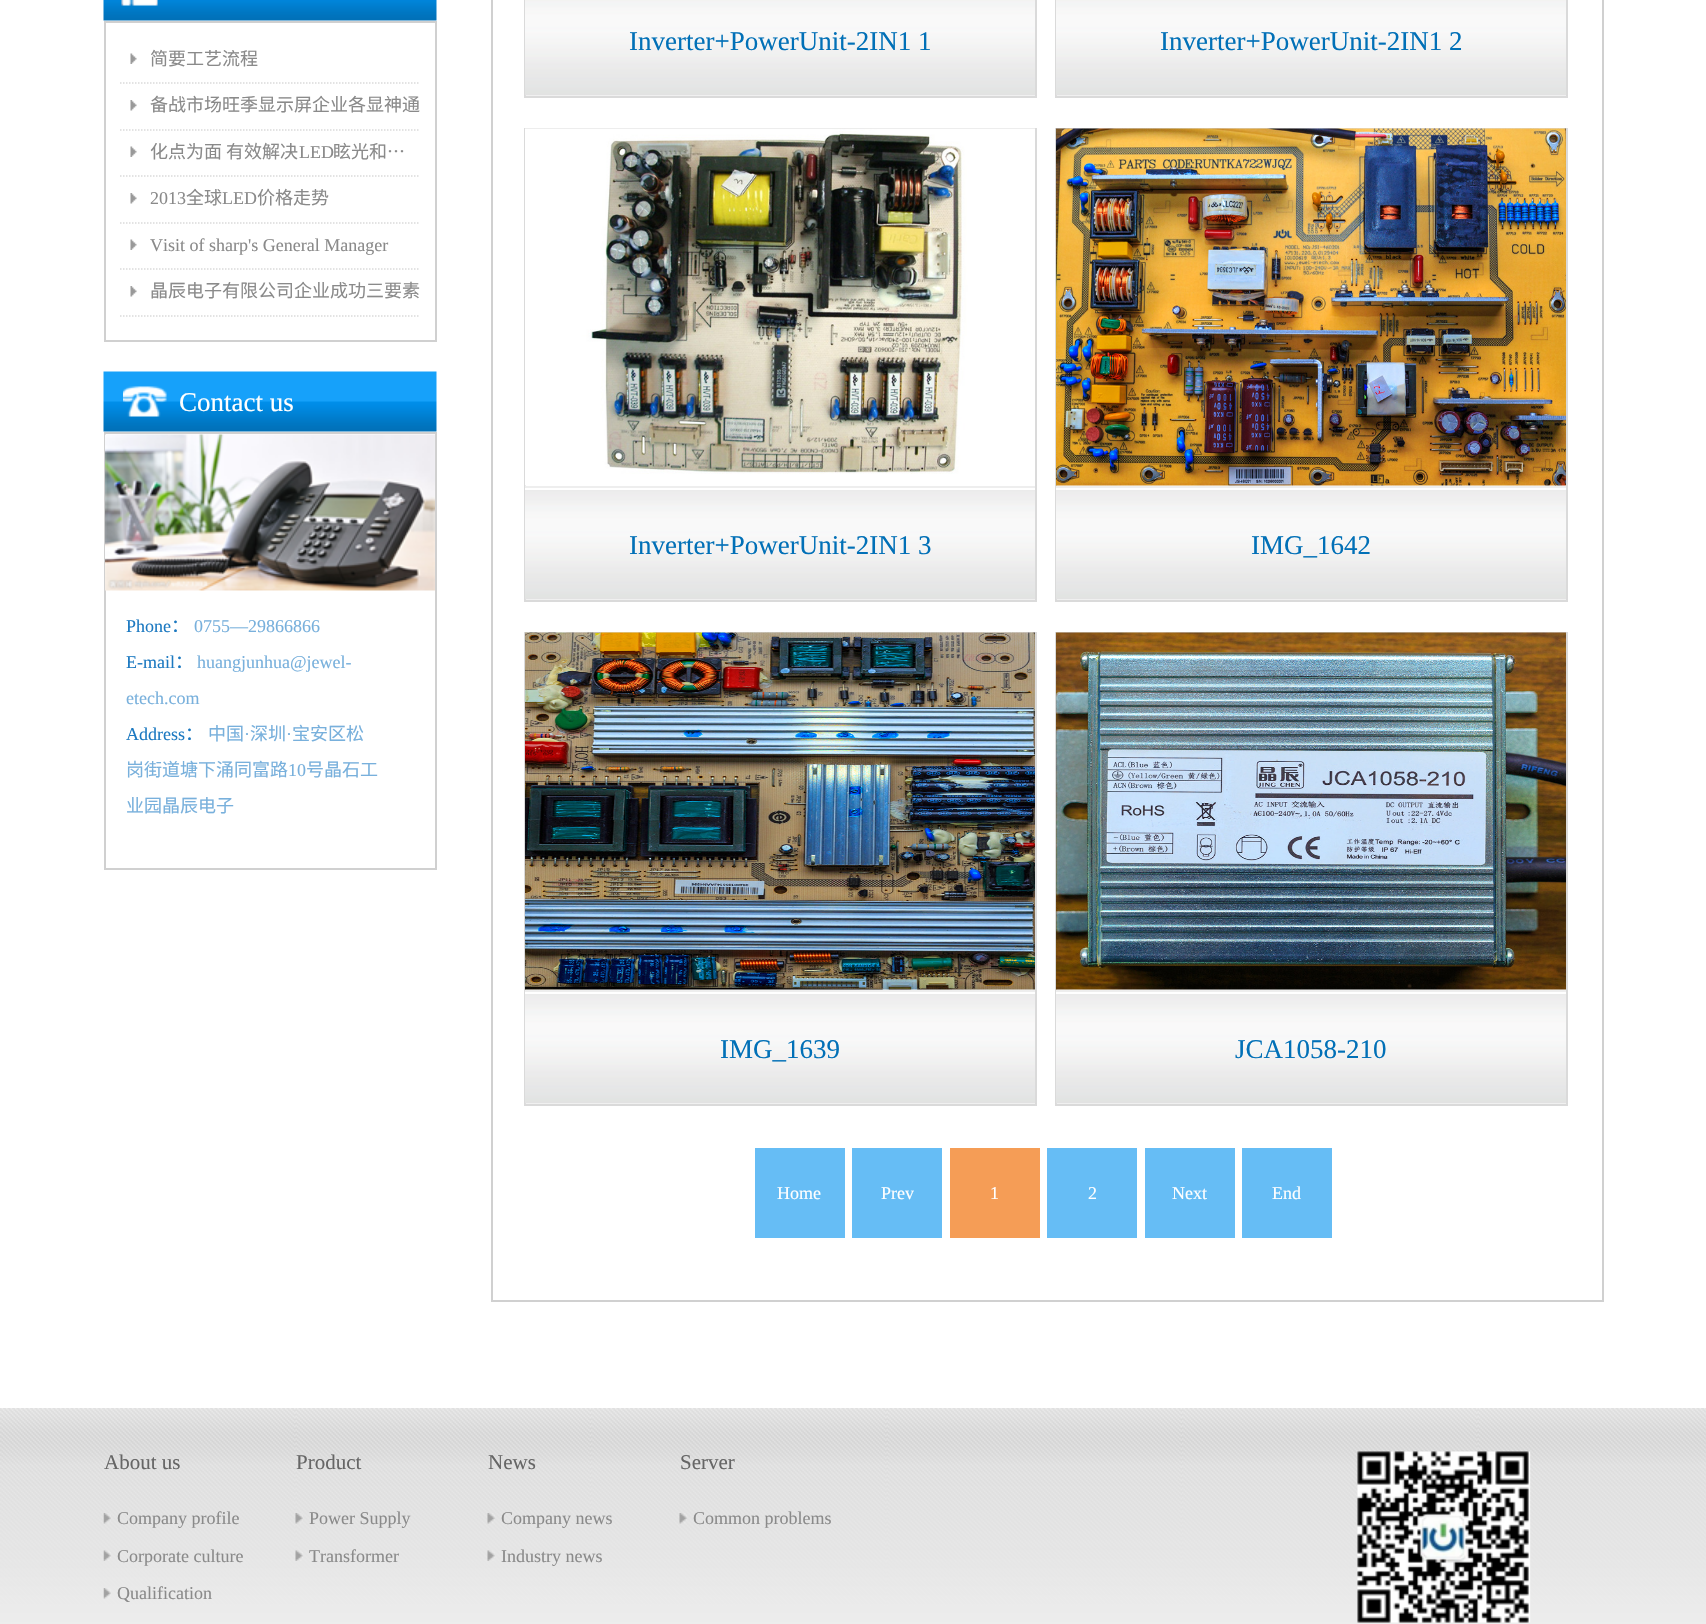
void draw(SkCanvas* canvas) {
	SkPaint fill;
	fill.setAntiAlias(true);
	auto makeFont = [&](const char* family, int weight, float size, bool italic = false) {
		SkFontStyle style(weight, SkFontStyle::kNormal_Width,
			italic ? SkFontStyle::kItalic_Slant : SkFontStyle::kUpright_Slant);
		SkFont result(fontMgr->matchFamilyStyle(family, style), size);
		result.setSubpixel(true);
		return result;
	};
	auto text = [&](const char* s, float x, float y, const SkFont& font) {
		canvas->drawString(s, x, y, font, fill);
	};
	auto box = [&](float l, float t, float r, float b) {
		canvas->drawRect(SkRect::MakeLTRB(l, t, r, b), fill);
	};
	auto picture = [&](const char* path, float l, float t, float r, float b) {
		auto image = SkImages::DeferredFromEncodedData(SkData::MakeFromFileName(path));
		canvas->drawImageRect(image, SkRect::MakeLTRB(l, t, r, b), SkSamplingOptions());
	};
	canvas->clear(0xFFFFFFFF);
	picture("image0.png", 103, 0, 437, 21);
	picture("image1.png", 121, 0, 158, 6);
	fill.setStyle(SkPaint::kStroke_Style);
	fill.setStrokeWidth(2);
	fill.setColor(0xFFD0D0D0);
	canvas->drawRect(SkRect::MakeLTRB(105, 22, 436, 341), fill);
	fill.setStrokeWidth(1.5f);
	fill.setColor(0xFFDADADA);
	fill.setPathEffect(SkDashPathEffect::Make({{1.5f, 1.5f}}, 0));
	canvas->drawPath(SkPathBuilder().moveTo(120, 83).lineTo(420, 83).detach(), fill);
	fill.setPathEffect(nullptr);
	picture("image2.png", 130, 53, 137, 64);
	fill.setPathEffect(SkDashPathEffect::Make({{1.5f, 1.5f}}, 0));
	canvas->drawPath(SkPathBuilder().moveTo(120, 130).lineTo(420, 130).detach(), fill);
	fill.setPathEffect(nullptr);
	picture("image3.png", 130, 100, 137, 111);
	fill.setPathEffect(SkDashPathEffect::Make({{1.5f, 1.5f}}, 0));
	canvas->drawPath(SkPathBuilder().moveTo(120, 176).lineTo(420, 176).detach(), fill);
	fill.setPathEffect(nullptr);
	picture("image2.png", 130, 146, 137, 157);
	fill.setPathEffect(SkDashPathEffect::Make({{1.5f, 1.5f}}, 0));
	canvas->drawPath(SkPathBuilder().moveTo(120, 223).lineTo(420, 223).detach(), fill);
	fill.setPathEffect(nullptr);
	picture("image3.png", 130, 193, 137, 204);
	fill.setPathEffect(SkDashPathEffect::Make({{1.5f, 1.5f}}, 0));
	canvas->drawPath(SkPathBuilder().moveTo(120, 269).lineTo(420, 269).detach(), fill);
	fill.setPathEffect(nullptr);
	picture("image2.png", 130, 239, 137, 250);
	fill.setPathEffect(SkDashPathEffect::Make({{1.5f, 1.5f}}, 0));
	canvas->drawPath(SkPathBuilder().moveTo(120, 316).lineTo(420, 316).detach(), fill);
	fill.setPathEffect(nullptr);
	picture("image3.png", 130, 286, 137, 297);
	picture("image4.png", 103, 371, 437, 432);
	picture("image5.png", 123, 386, 167, 417);
	fill.setStrokeWidth(2);
	fill.setColor(0xFFD0D0D0);
	canvas->drawRect(SkRect::MakeLTRB(105, 433, 436, 869), fill);
	picture("image6.png", 105, 434, 435, 591);
	canvas->drawRect(SkRect::MakeLTRB(492, -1, 1603, 1301), fill);
	fill.setColor(0xFFDADADA);
	canvas->drawRect(SkRect::MakeLTRB(525, -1, 1036, 97), fill);
	picture("image7.png", 525, 0, 1035, 96);
	canvas->drawRect(SkRect::MakeLTRB(1056, -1, 1567, 97), fill);
	picture("image7.png", 1056, 0, 1566, 96);
	canvas->drawRect(SkRect::MakeLTRB(525, 129, 1036, 601), fill);
	fill.setStyle(SkPaint::kFill_Style);
	fill.setColor(0xFFEEEEEE);
	box(525, 486, 1035, 488);
	picture("image8.png", 525, 128, 1035, 486);
	picture("image9.png", 525, 490, 1035, 600);
	fill.setColor(0xFFFFFFFF);
	box(525, 488, 526, 490);
	fill.setStyle(SkPaint::kStroke_Style);
	fill.setColor(0xFFDADADA);
	canvas->drawRect(SkRect::MakeLTRB(1056, 129, 1567, 601), fill);
	fill.setStyle(SkPaint::kFill_Style);
	fill.setColor(0xFFEEEEEE);
	box(1056, 486, 1566, 488);
	picture("image10.png", 1056, 128, 1566, 486);
	picture("image9.png", 1056, 490, 1566, 600);
	fill.setColor(0xFFFFFFFF);
	box(1056, 488, 1057, 490);
	fill.setStyle(SkPaint::kStroke_Style);
	fill.setColor(0xFFDADADA);
	canvas->drawRect(SkRect::MakeLTRB(525, 633, 1036, 1105), fill);
	fill.setStyle(SkPaint::kFill_Style);
	fill.setColor(0xFFEEEEEE);
	box(525, 990, 1035, 992);
	picture("image11.png", 525, 632, 1035, 990);
	picture("image9.png", 525, 994, 1035, 1104);
	fill.setColor(0xFFFFFFFF);
	box(525, 992, 526, 994);
	fill.setStyle(SkPaint::kStroke_Style);
	fill.setColor(0xFFDADADA);
	canvas->drawRect(SkRect::MakeLTRB(1056, 633, 1567, 1105), fill);
	fill.setStyle(SkPaint::kFill_Style);
	fill.setColor(0xFFEEEEEE);
	box(1056, 990, 1566, 992);
	picture("image12.png", 1056, 632, 1566, 990);
	picture("image9.png", 1056, 994, 1566, 1104);
	fill.setColor(0xFFFFFFFF);
	box(1056, 992, 1057, 994);
	fill.setColor(0xFF66BDF5);
	box(755, 1148, 845, 1238);
	box(852, 1148, 942, 1238);
	fill.setColor(0xFFF59D56);
	box(950, 1148, 1040, 1238);
	fill.setColor(0xFF66BDF5);
	box(1047, 1148, 1137, 1238);
	box(1145, 1148, 1235, 1238);
	box(1242, 1148, 1332, 1238);
	picture("image13.png", 0, 1408, 1706, 1624);
	picture("image14.png", 103, 1513, 111, 1524);
	picture("image15.png", 103, 1550, 111, 1561);
	picture("image16.png", 103, 1588, 111, 1599);
	picture("image17.png", 295, 1513, 303, 1524);
	picture("image18.png", 295, 1550, 303, 1561);
	picture("image19.png", 487, 1513, 495, 1524);
	picture("image20.png", 487, 1550, 495, 1561);
	picture("image21.png", 679, 1513, 687, 1524);
	picture("image22.png", 1357, 1451, 1531, 1623);
	auto font1 = makeFont("Noto Sans CJK SC", 400, 18);
	fill.setColor(0xFF8A8A8A);
	text("简要工艺流程", 150, 65, font1);
	text("备战市场旺季显示屏企业各显神通", 150, 111, font1);
	text("化点为面 有效解决", 150, 158, font1);
	auto font2 = makeFont("Liberation Serif", 400, 18);
	text("LED", 299, 158, font2);
	text("眩光和…", 333, 158, font1);
	text("2013", 150, 204, font2);
	text("全球", 186, 204, font1);
	text("LED", 222, 204, font2);
	text("价格走势", 257, 204, font1);
	text("Visit of sharp's General Manager", 150, 251, font2);
	text("晶辰电子有限公司企业成功三要素", 150, 297, font1);
	auto font3 = makeFont("Liberation Serif", 400, 27);
	fill.setColor(0xFFFFFFFF);
	text("Contact us", 179, 411, font3);
	fill.setColor(0xFF1C79C1);
	text("Phone", 126, 632, font2);
	text("：", 171, 632, font1);
	fill.setColor(0xFF78B0DC);
	text("0755—29866866", 194, 632, font2);
	fill.setColor(0xFF1C79C1);
	text("E-mail", 126, 668, font2);
	text("：", 175, 668, font1);
	fill.setColor(0xFF78B0DC);
	text("huangjunhua@jewel-", 197, 668, font2);
	text("etech.com", 126, 704, font2);
	fill.setColor(0xFF1C79C1);
	text("Address", 126, 740, font2);
	text("：", 185, 740, font1);
	fill.setColor(0xFF78B0DC);
	text("中国", 208, 740, font1);
	text("·", 244, 740, font2);
	text("深圳", 250, 740, font1);
	text("·", 286, 740, font2);
	text("宝安区松", 292, 740, font1);
	text("岗街道塘下涌同富路", 126, 776, font1);
	text("10", 288, 776, font2);
	text("号晶石工", 306, 776, font1);
	text("业园晶辰电子", 126, 812, font1);
	fill.setColor(0xFF0170B7);
	text("Inverter+PowerUnit-2IN1 1", 629, 50, font3);
	text("Inverter+PowerUnit-2IN1 2", 1160, 50, font3);
	text("Inverter+PowerUnit-2IN1 3", 629, 554, font3);
	text("IMG_1642", 1251, 554, font3);
	text("IMG_1639", 720, 1058, font3);
	text("JCA1058-210", 1235, 1058, font3);
	fill.setColor(0xFFFFFFFF);
	text("Home", 777, 1199, font2);
	text("Prev", 881, 1199, font2);
	text("1", 990, 1199, font2);
	text("2", 1088, 1199, font2);
	text("Next", 1172, 1199, font2);
	text("End", 1272, 1199, font2);
	auto font4 = makeFont("Liberation Serif", 400, 21);
	fill.setColor(0xFF666666);
	text("About us", 104, 1469, font4);
	fill.setColor(0xFF8A8A8A);
	text("Company profile", 117, 1524, font2);
	text("Corporate culture", 117, 1562, font2);
	text("Qualification", 117, 1599, font2);
	fill.setColor(0xFF666666);
	text("Product", 296, 1469, font4);
	fill.setColor(0xFF8A8A8A);
	text("Power Supply", 309, 1524, font2);
	text("Transformer", 309, 1562, font2);
	fill.setColor(0xFF666666);
	text("News", 488, 1469, font4);
	fill.setColor(0xFF8A8A8A);
	text("Company news", 501, 1524, font2);
	text("Industry news", 501, 1562, font2);
	fill.setColor(0xFF666666);
	text("Server", 680, 1469, font4);
	fill.setColor(0xFF8A8A8A);
	text("Common problems", 693, 1524, font2);
}
